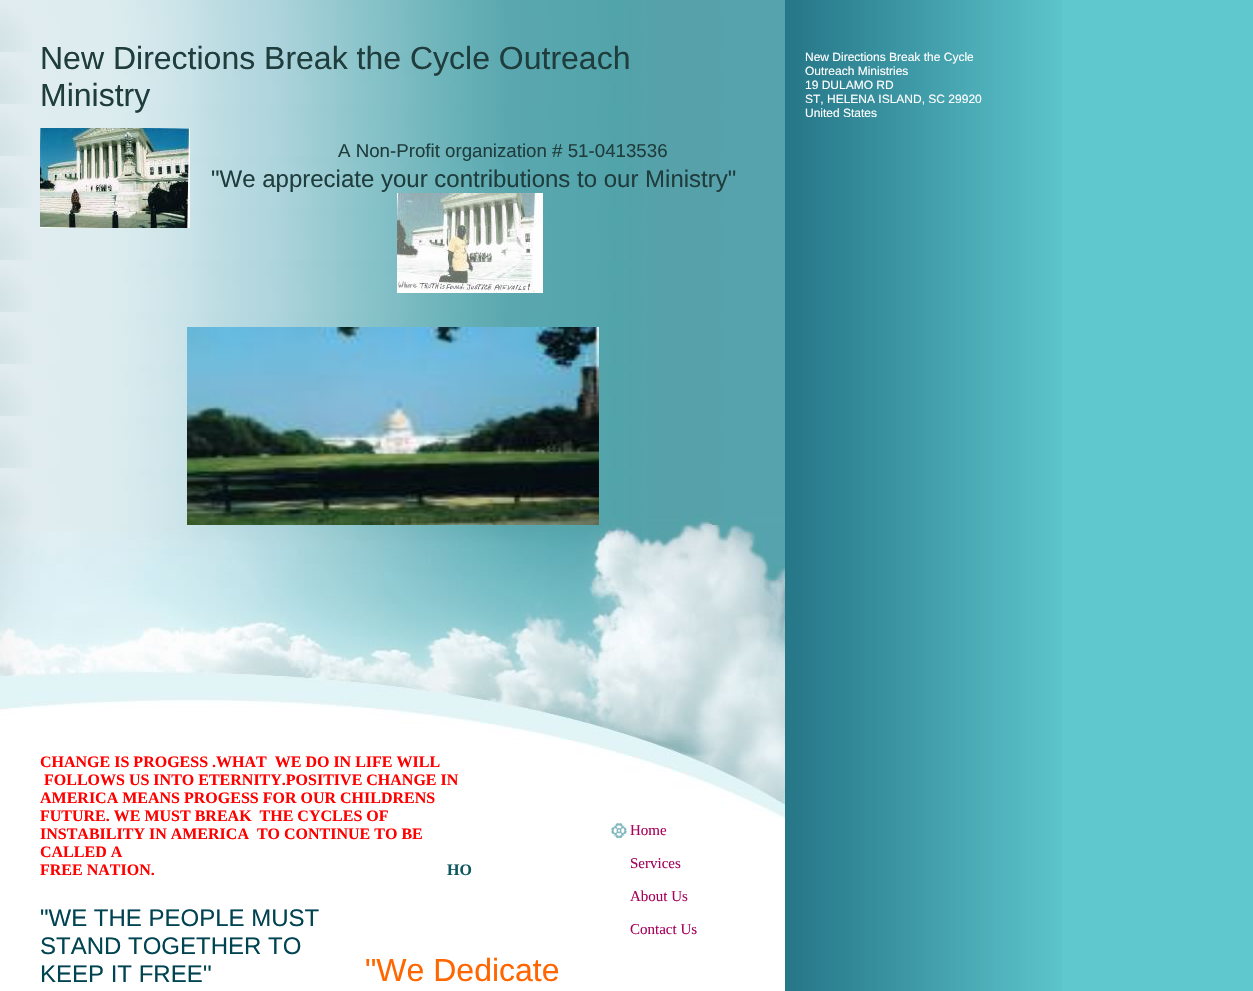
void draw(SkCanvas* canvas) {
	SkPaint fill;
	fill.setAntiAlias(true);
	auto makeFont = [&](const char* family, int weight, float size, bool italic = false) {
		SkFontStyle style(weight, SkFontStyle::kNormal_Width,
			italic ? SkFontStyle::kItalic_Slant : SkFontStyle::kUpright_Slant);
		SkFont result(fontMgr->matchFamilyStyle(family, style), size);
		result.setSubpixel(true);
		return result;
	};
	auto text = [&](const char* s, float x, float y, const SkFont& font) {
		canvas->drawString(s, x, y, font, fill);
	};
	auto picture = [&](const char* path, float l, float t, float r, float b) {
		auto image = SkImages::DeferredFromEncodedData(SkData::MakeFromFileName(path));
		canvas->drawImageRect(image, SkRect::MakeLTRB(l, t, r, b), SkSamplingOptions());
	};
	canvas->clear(0xFF5FC8CF);
	picture("image0.png", 0, 0, 1062, 991);
	picture("image1.png", 0, 0, 785, 516);
	picture("image2.png", 0, 516, 785, 818);
	picture("image3.png", 40, 128, 190, 228);
	picture("image4.png", 397, 193, 543, 293);
	picture("image5.png", 187, 327, 599, 525);
	picture("image6.png", 611, 823, 627, 839);
	auto font1 = makeFont("Liberation Sans", 400, 32);
	fill.setColor(0xFF1F3D3D);
	text("New Directions Break the Cycle Outreach", 40, 69, font1);
	text("Ministry", 40, 106, font1);
	auto font2 = makeFont("Liberation Sans", 400, 18.7f);
	text("A Non-Profit organization # 51-0413536", 338, 157, font2);
	auto font3 = makeFont("Liberation Sans", 400, 24);
	text("\"We appreciate your contributions to our Ministry\"", 211, 187, font3);
	auto font4 = makeFont("Liberation Sans", 400, 12);
	fill.setColor(0xFFFFFFFF);
	text("New Directions Break the Cycle", 805, 61, font4);
	text("Outreach Ministries", 805, 75, font4);
	text("19 DULAMO RD", 805, 89, font4);
	text("ST, HELENA ISLAND, SC 29920", 805, 103, font4);
	text("United States", 805, 117, font4);
	auto font5 = makeFont("Liberation Serif", 700, 16);
	fill.setColor(0xFFFF0000);
	text("CHANGE IS PROGESS .WHAT  WE DO IN LIFE WILL", 40, 767, font5);
	text("FOLLOWS US INTO ETERNITY.POSITIVE CHANGE IN", 44, 785, font5);
	text("AMERICA MEANS PROGESS FOR OUR CHILDRENS", 40, 803, font5);
	text("FUTURE. WE MUST BREAK  THE CYCLES OF", 40, 821, font5);
	text("INSTABILITY IN AMERICA  TO CONTINUE TO BE", 40, 839, font5);
	text("CALLED A", 40, 857, font5);
	text("FREE NATION.", 40, 875, font5);
	fill.setColor(0xFF0E5860);
	text("HO", 447, 875, font5);
	fill.setColor(0xFF004351);
	text("\"WE THE PEOPLE MUST", 40, 926, font3);
	text("STAND TOGETHER TO", 40, 954, font3);
	text("KEEP IT FREE''", 40, 982, font3);
	fill.setColor(0xFFFF6600);
	text("\"We Dedicate", 365, 981, font1);
	auto font6 = makeFont("Liberation Serif", 400, 15);
	fill.setColor(0xFFA7015B);
	text("Home", 630, 835, font6);
	text("Services", 630, 868, font6);
	text("About Us", 630, 901, font6);
	text("Contact Us", 630, 934, font6);
}
